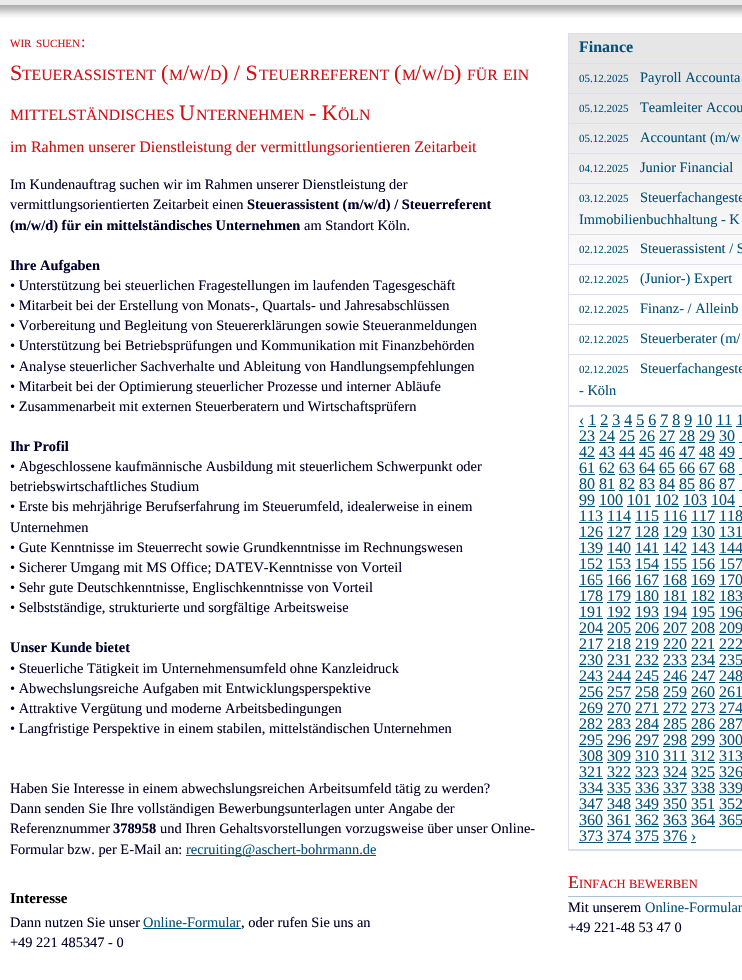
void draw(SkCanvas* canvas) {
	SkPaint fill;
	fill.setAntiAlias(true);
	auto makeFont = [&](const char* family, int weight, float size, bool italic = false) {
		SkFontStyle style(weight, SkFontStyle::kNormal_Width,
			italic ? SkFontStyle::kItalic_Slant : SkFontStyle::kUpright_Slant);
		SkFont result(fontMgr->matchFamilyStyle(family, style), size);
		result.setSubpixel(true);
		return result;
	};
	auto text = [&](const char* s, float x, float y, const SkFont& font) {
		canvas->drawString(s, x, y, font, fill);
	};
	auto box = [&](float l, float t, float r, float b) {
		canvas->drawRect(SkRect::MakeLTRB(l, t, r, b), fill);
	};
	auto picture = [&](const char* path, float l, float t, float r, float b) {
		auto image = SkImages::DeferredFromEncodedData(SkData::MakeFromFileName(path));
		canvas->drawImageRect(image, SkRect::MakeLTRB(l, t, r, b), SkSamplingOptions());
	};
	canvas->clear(0xFFFFFFFF);
	picture("image0.png", 0, 0, 742, 18);
	fill.setColor(0xFF045279);
	box(186, 855, 376, 856);
	box(143, 928, 241, 929);
	fill.setColor(0xFFE6E6E6);
	canvas->drawRect(SkRect::MakeLTRB(568.5f, 33.5f, 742.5f, 63.5f), fill);
	fill.setStyle(SkPaint::kStroke_Style);
	fill.setStrokeWidth(1);
	fill.setColor(0xFFDCDDF1);
	canvas->drawRect(SkRect::MakeLTRB(568.5f, 33.5f, 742.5f, 63.5f), fill);
	picture("image1.png", 569, 64, 742, 269);
	fill.setStyle(SkPaint::kFill_Style);
	box(568, 850, 742, 851);
	box(568, 64, 569, 851);
	box(569, 93, 742, 94);
	box(569, 123, 742, 124);
	box(569, 153, 742, 154);
	box(569, 183, 742, 184);
	box(569, 234, 742, 235);
	box(569, 264, 742, 265);
	box(569, 294, 742, 295);
	box(569, 324, 742, 325);
	box(569, 354, 742, 355);
	box(569, 405, 742, 407);
	box(569, 849, 742, 850);
	fill.setColor(0xFF045279);
	box(579, 426, 584, 427);
	box(588, 426, 596, 427);
	box(600, 426, 608, 427);
	box(612, 426, 620, 427);
	box(624, 426, 632, 427);
	box(636, 426, 644, 427);
	box(648, 426, 656, 427);
	box(660, 426, 668, 427);
	box(672, 426, 680, 427);
	box(684, 426, 692, 427);
	box(696, 426, 712, 427);
	box(716, 426, 732, 427);
	box(736, 426, 742, 427);
	box(579, 442, 595, 443);
	box(599, 442, 615, 443);
	box(619, 442, 635, 443);
	box(639, 442, 655, 443);
	box(659, 442, 675, 443);
	box(679, 442, 695, 443);
	box(699, 442, 715, 443);
	box(719, 442, 735, 443);
	box(739, 442, 742, 443);
	box(579, 458, 595, 459);
	box(599, 458, 615, 459);
	box(619, 458, 635, 459);
	box(639, 458, 655, 459);
	box(659, 458, 675, 459);
	box(679, 458, 695, 459);
	box(699, 458, 715, 459);
	box(719, 458, 735, 459);
	box(739, 458, 742, 459);
	box(579, 474, 595, 475);
	box(599, 474, 615, 475);
	box(619, 474, 635, 475);
	box(639, 474, 655, 475);
	box(659, 474, 675, 475);
	box(679, 474, 695, 475);
	box(699, 474, 715, 475);
	box(719, 474, 735, 475);
	box(739, 474, 742, 475);
	box(579, 490, 595, 491);
	box(599, 490, 615, 491);
	box(619, 490, 635, 491);
	box(639, 490, 655, 491);
	box(659, 490, 675, 491);
	box(679, 490, 695, 491);
	box(699, 490, 715, 491);
	box(719, 490, 735, 491);
	box(739, 490, 742, 491);
	box(579, 506, 595, 507);
	box(599, 506, 623, 507);
	box(627, 506, 651, 507);
	box(655, 506, 679, 507);
	box(683, 506, 707, 507);
	box(711, 506, 735, 507);
	box(739, 506, 742, 507);
	box(579, 522, 603, 523);
	box(607, 522, 631, 523);
	box(635, 522, 659, 523);
	box(663, 522, 687, 523);
	box(691, 522, 715, 523);
	box(719, 522, 742, 523);
	box(579, 538, 603, 539);
	box(607, 538, 631, 539);
	box(635, 538, 659, 539);
	box(663, 538, 687, 539);
	box(691, 538, 715, 539);
	box(719, 538, 742, 539);
	box(579, 554, 603, 555);
	box(607, 554, 631, 555);
	box(635, 554, 659, 555);
	box(663, 554, 687, 555);
	box(691, 554, 715, 555);
	box(719, 554, 742, 555);
	box(579, 570, 603, 571);
	box(607, 570, 631, 571);
	box(635, 570, 659, 571);
	box(663, 570, 687, 571);
	box(691, 570, 715, 571);
	box(719, 570, 742, 571);
	box(579, 586, 603, 587);
	box(607, 586, 631, 587);
	box(635, 586, 659, 587);
	box(663, 586, 687, 587);
	box(691, 586, 715, 587);
	box(719, 586, 742, 587);
	box(579, 602, 603, 603);
	box(607, 602, 631, 603);
	box(635, 602, 659, 603);
	box(663, 602, 687, 603);
	box(691, 602, 715, 603);
	box(719, 602, 742, 603);
	box(579, 618, 603, 619);
	box(607, 618, 631, 619);
	box(635, 618, 659, 619);
	box(663, 618, 687, 619);
	box(691, 618, 715, 619);
	box(719, 618, 742, 619);
	box(579, 634, 603, 635);
	box(607, 634, 631, 635);
	box(635, 634, 659, 635);
	box(663, 634, 687, 635);
	box(691, 634, 715, 635);
	box(719, 634, 742, 635);
	box(579, 650, 603, 651);
	box(607, 650, 631, 651);
	box(635, 650, 659, 651);
	box(663, 650, 687, 651);
	box(691, 650, 715, 651);
	box(719, 650, 742, 651);
	box(579, 666, 603, 667);
	box(607, 666, 631, 667);
	box(635, 666, 659, 667);
	box(663, 666, 687, 667);
	box(691, 666, 715, 667);
	box(719, 666, 742, 667);
	box(579, 682, 603, 683);
	box(607, 682, 631, 683);
	box(635, 682, 659, 683);
	box(663, 682, 687, 683);
	box(691, 682, 715, 683);
	box(719, 682, 742, 683);
	box(579, 698, 603, 699);
	box(607, 698, 631, 699);
	box(635, 698, 659, 699);
	box(663, 698, 687, 699);
	box(691, 698, 715, 699);
	box(719, 698, 742, 699);
	box(579, 714, 603, 715);
	box(607, 714, 631, 715);
	box(635, 714, 659, 715);
	box(663, 714, 687, 715);
	box(691, 714, 715, 715);
	box(719, 714, 742, 715);
	box(579, 730, 603, 731);
	box(607, 730, 631, 731);
	box(635, 730, 659, 731);
	box(663, 730, 687, 731);
	box(691, 730, 715, 731);
	box(719, 730, 742, 731);
	box(579, 746, 603, 747);
	box(607, 746, 631, 747);
	box(635, 746, 659, 747);
	box(663, 746, 687, 747);
	box(691, 746, 715, 747);
	box(719, 746, 742, 747);
	box(579, 762, 603, 763);
	box(607, 762, 631, 763);
	box(635, 762, 659, 763);
	box(663, 762, 687, 763);
	box(691, 762, 715, 763);
	box(719, 762, 742, 763);
	box(579, 778, 603, 779);
	box(607, 778, 631, 779);
	box(635, 778, 659, 779);
	box(663, 778, 687, 779);
	box(691, 778, 715, 779);
	box(719, 778, 742, 779);
	box(579, 794, 603, 795);
	box(607, 794, 631, 795);
	box(635, 794, 659, 795);
	box(663, 794, 687, 795);
	box(691, 794, 715, 795);
	box(719, 794, 742, 795);
	box(579, 810, 603, 811);
	box(607, 810, 631, 811);
	box(635, 810, 659, 811);
	box(663, 810, 687, 811);
	box(691, 810, 715, 811);
	box(719, 810, 742, 811);
	box(579, 826, 603, 827);
	box(607, 826, 631, 827);
	box(635, 826, 659, 827);
	box(663, 826, 687, 827);
	box(691, 826, 715, 827);
	box(719, 826, 742, 827);
	box(579, 842, 603, 843);
	box(607, 842, 631, 843);
	box(635, 842, 659, 843);
	box(663, 842, 687, 843);
	box(691, 842, 696, 843);
	fill.setColor(0xFFA5C5D6);
	box(568, 896, 742, 897);
	auto font1 = makeFont("Liberation Serif", 400, 11);
	fill.setColor(0xFFD41014);
	text("WIR", 10, 47, font1);
	text("SUCHEN", 36, 47, font1);
	auto font2 = makeFont("Liberation Serif", 400, 16);
	text(":", 81, 47, font2);
	auto font3 = makeFont("Liberation Serif", 400, 22);
	text("S", 10, 80, font3);
	auto font4 = makeFont("Liberation Serif", 400, 15.75f);
	text("TEUERASSISTENT", 22, 80, font4);
	text("(", 161, 80, font3);
	text("M", 169, 80, font4);
	text("/", 183, 80, font3);
	text("W", 189, 80, font4);
	text("/", 204, 80, font3);
	text("D", 210, 80, font4);
	text(") / S", 221, 80, font3);
	text("TEUERREFERENT", 259, 80, font4);
	text("(", 394, 80, font3);
	text("M", 402, 80, font4);
	text("/", 415, 80, font3);
	text("W", 422, 80, font4);
	text("/", 437, 80, font3);
	text("D", 443, 80, font4);
	text(")", 454, 80, font3);
	text("FÜR", 467, 80, font4);
	text("EIN", 503, 80, font4);
	text("MITTELSTÄNDISCHES", 10, 120, font4);
	text("U", 179, 120, font3);
	text("NTERNEHMEN", 196, 120, font4);
	text("- K", 309, 120, font3);
	text("ÖLN", 338, 120, font4);
	text("im Rahmen unserer Dienstleistung der vermittlungsorientieren Zeitarbeit", 10, 152, font2);
	auto font5 = makeFont("Liberation Serif", 400, 14.4f);
	fill.setColor(0xFF02012A);
	text("Im Kundenauftrag suchen wir im Rahmen unserer Dienstleistung der", 10, 189, font5);
	text("vermittlungsorientierten Zeitarbeit einen", 10, 209, font5);
	auto font6 = makeFont("Liberation Serif", 700, 14.4f);
	text("Steuerassistent (m/w/d) / Steuerreferent", 247, 209, font6);
	text("(m/w/d) für ein mittelständisches Unternehmen", 10, 230, font6);
	text("am Standort Köln.", 304, 230, font5);
	text("Ihre Aufgaben", 10, 270, font6);
	text("• Unterstützung bei steuerlichen Fragestellungen im laufenden Tagesgeschäft", 10, 290, font5);
	text("• Mitarbeit bei der Erstellung von Monats-, Quartals- und Jahresabschlüssen", 10, 310, font5);
	text("• Vorbereitung und Begleitung von Steuererklärungen sowie Steueranmeldungen", 10, 330, font5);
	text("• Unterstützung bei Betriebsprüfungen und Kommunikation mit Finanzbehörden", 10, 350, font5);
	text("• Analyse steuerlicher Sachverhalte und Ableitung von Handlungsempfehlungen", 10, 371, font5);
	text("• Mitarbeit bei der Optimierung steuerlicher Prozesse und interner Abläufe", 10, 391, font5);
	text("• Zusammenarbeit mit externen Steuerberatern und Wirtschaftsprüfern", 10, 411, font5);
	text("Ihr Profil", 10, 451, font6);
	text("• Abgeschlossene kaufmännische Ausbildung mit steuerlichem Schwerpunkt oder", 10, 471, font5);
	text("betriebswirtschaftliches Studium", 10, 491, font5);
	text("• Erste bis mehrjährige Berufserfahrung im Steuerumfeld, idealerweise in einem", 10, 511, font5);
	text("Unternehmen", 10, 532, font5);
	text("• Gute Kenntnisse im Steuerrecht sowie Grundkenntnisse im Rechnungswesen", 10, 552, font5);
	text("• Sicherer Umgang mit MS Office; DATEV-Kenntnisse von Vorteil", 10, 572, font5);
	text("• Sehr gute Deutschkenntnisse, Englischkenntnisse von Vorteil", 10, 592, font5);
	text("• Selbstständige, strukturierte und sorgfältige Arbeitsweise", 10, 612, font5);
	text("Unser Kunde bietet", 10, 652, font6);
	text("• Steuerliche Tätigkeit im Unternehmensumfeld ohne Kanzleidruck", 10, 673, font5);
	text("• Abwechslungsreiche Aufgaben mit Entwicklungsperspektive", 10, 693, font5);
	text("• Attraktive Vergütung und moderne Arbeitsbedingungen", 10, 713, font5);
	text("• Langfristige Perspektive in einem stabilen, mittelständischen Unternehmen", 10, 733, font5);
	text("Haben Sie Interesse in einem abwechslungsreichen Arbeitsumfeld tätig zu werden?", 10, 793, font5);
	text("Dann senden Sie Ihre vollständigen Bewerbungsunterlagen unter Angabe der", 10, 813, font5);
	text("Referenznummer", 10, 833, font5);
	text("378958", 113, 833, font6);
	text("und Ihren Gehaltsvorstellungen vorzugsweise über unser Online-", 160, 833, font5);
	text("Formular bzw. per E-Mail an:", 10, 854, font5);
	fill.setColor(0xFF045279);
	text("recruiting@aschert-bohrmann.de", 186, 854, font5);
	auto font7 = makeFont("Liberation Serif", 700, 15);
	fill.setColor(0xFF000000);
	text("Interesse", 10, 903, font7);
	fill.setColor(0xFF02012A);
	text("Dann nutzen Sie unser", 10, 927, font5);
	fill.setColor(0xFF045279);
	text("Online-Formular", 143, 927, font5);
	fill.setColor(0xFF02012A);
	text(", oder rufen Sie uns an", 241, 927, font5);
	text("+49 221 485347 - 0", 10, 947, font5);
	auto font8 = makeFont("Liberation Serif", 700, 16);
	fill.setColor(0xFF045279);
	text("Finance", 579, 52, font8);
	text("05.12.2025", 579, 82, font1);
	text("Payroll Accounta", 640, 82, font5);
	text("05.12.2025", 579, 112, font1);
	text("Teamleiter Accou", 640, 112, font5);
	text("05.12.2025", 579, 142, font1);
	text("Accountant (m/w", 640, 142, font5);
	text("04.12.2025", 579, 172, font1);
	text("Junior Financial", 640, 172, font5);
	text("03.12.2025", 579, 202, font1);
	text("Steuerfachangeste", 640, 202, font5);
	text("Immobilienbuchhaltung - K", 579, 224, font5);
	text("02.12.2025", 579, 253, font1);
	text("Steuerassistent / S", 640, 253, font5);
	text("02.12.2025", 579, 283, font1);
	text("(Junior-) Expert", 640, 283, font5);
	text("02.12.2025", 579, 313, font1);
	text("Finanz- / Alleinb", 640, 313, font5);
	text("02.12.2025", 579, 343, font1);
	text("Steuerberater (m/", 640, 343, font5);
	text("02.12.2025", 579, 373, font1);
	text("Steuerfachangeste", 640, 373, font5);
	text("- Köln", 579, 395, font5);
	text("‹ 1 2 3 4 5 6 7 8 9 10 11 1", 579, 425, font2);
	text("23 24 25 26 27 28 29 30", 579, 441, font2);
	text("42 43 44 45 46 47 48 49", 579, 457, font2);
	text("61 62 63 64 65 66 67 68", 579, 473, font2);
	text("80 81 82 83 84 85 86 87", 579, 489, font2);
	text("99 100 101 102 103 104", 579, 505, font2);
	text("113 114 115 116 117 118", 579, 521, font2);
	text("126 127 128 129 130 131", 579, 537, font2);
	text("139 140 141 142 143 144", 579, 553, font2);
	text("152 153 154 155 156 157", 579, 569, font2);
	text("165 166 167 168 169 170", 579, 585, font2);
	text("178 179 180 181 182 183", 579, 601, font2);
	text("191 192 193 194 195 196", 579, 617, font2);
	text("204 205 206 207 208 209", 579, 633, font2);
	text("217 218 219 220 221 222", 579, 649, font2);
	text("230 231 232 233 234 235", 579, 665, font2);
	text("243 244 245 246 247 248", 579, 681, font2);
	text("256 257 258 259 260 261", 579, 697, font2);
	text("269 270 271 272 273 274", 579, 713, font2);
	text("282 283 284 285 286 287", 579, 729, font2);
	text("295 296 297 298 299 300", 579, 745, font2);
	text("308 309 310 311 312 313", 579, 761, font2);
	text("321 322 323 324 325 326", 579, 777, font2);
	text("334 335 336 337 338 339", 579, 793, font2);
	text("347 348 349 350 351 352", 579, 809, font2);
	text("360 361 362 363 364 365", 579, 825, font2);
	text("373 374 375 376 ›", 579, 841, font2);
	auto font9 = makeFont("Liberation Serif", 400, 18);
	fill.setColor(0xFFD41014);
	text("E", 568, 888, font9);
	auto font10 = makeFont("Liberation Serif", 400, 12.5f);
	text("INFACH", 579, 888, font10);
	text("BEWERBEN", 629, 888, font10);
	fill.setColor(0xFF02012A);
	text("Mit unserem", 568, 912, font5);
	fill.setColor(0xFF045279);
	text("Online-Formular", 645, 912, font5);
	fill.setColor(0xFF02012A);
	text("+49 221-48 53 47 0", 568, 932, font5);
}
